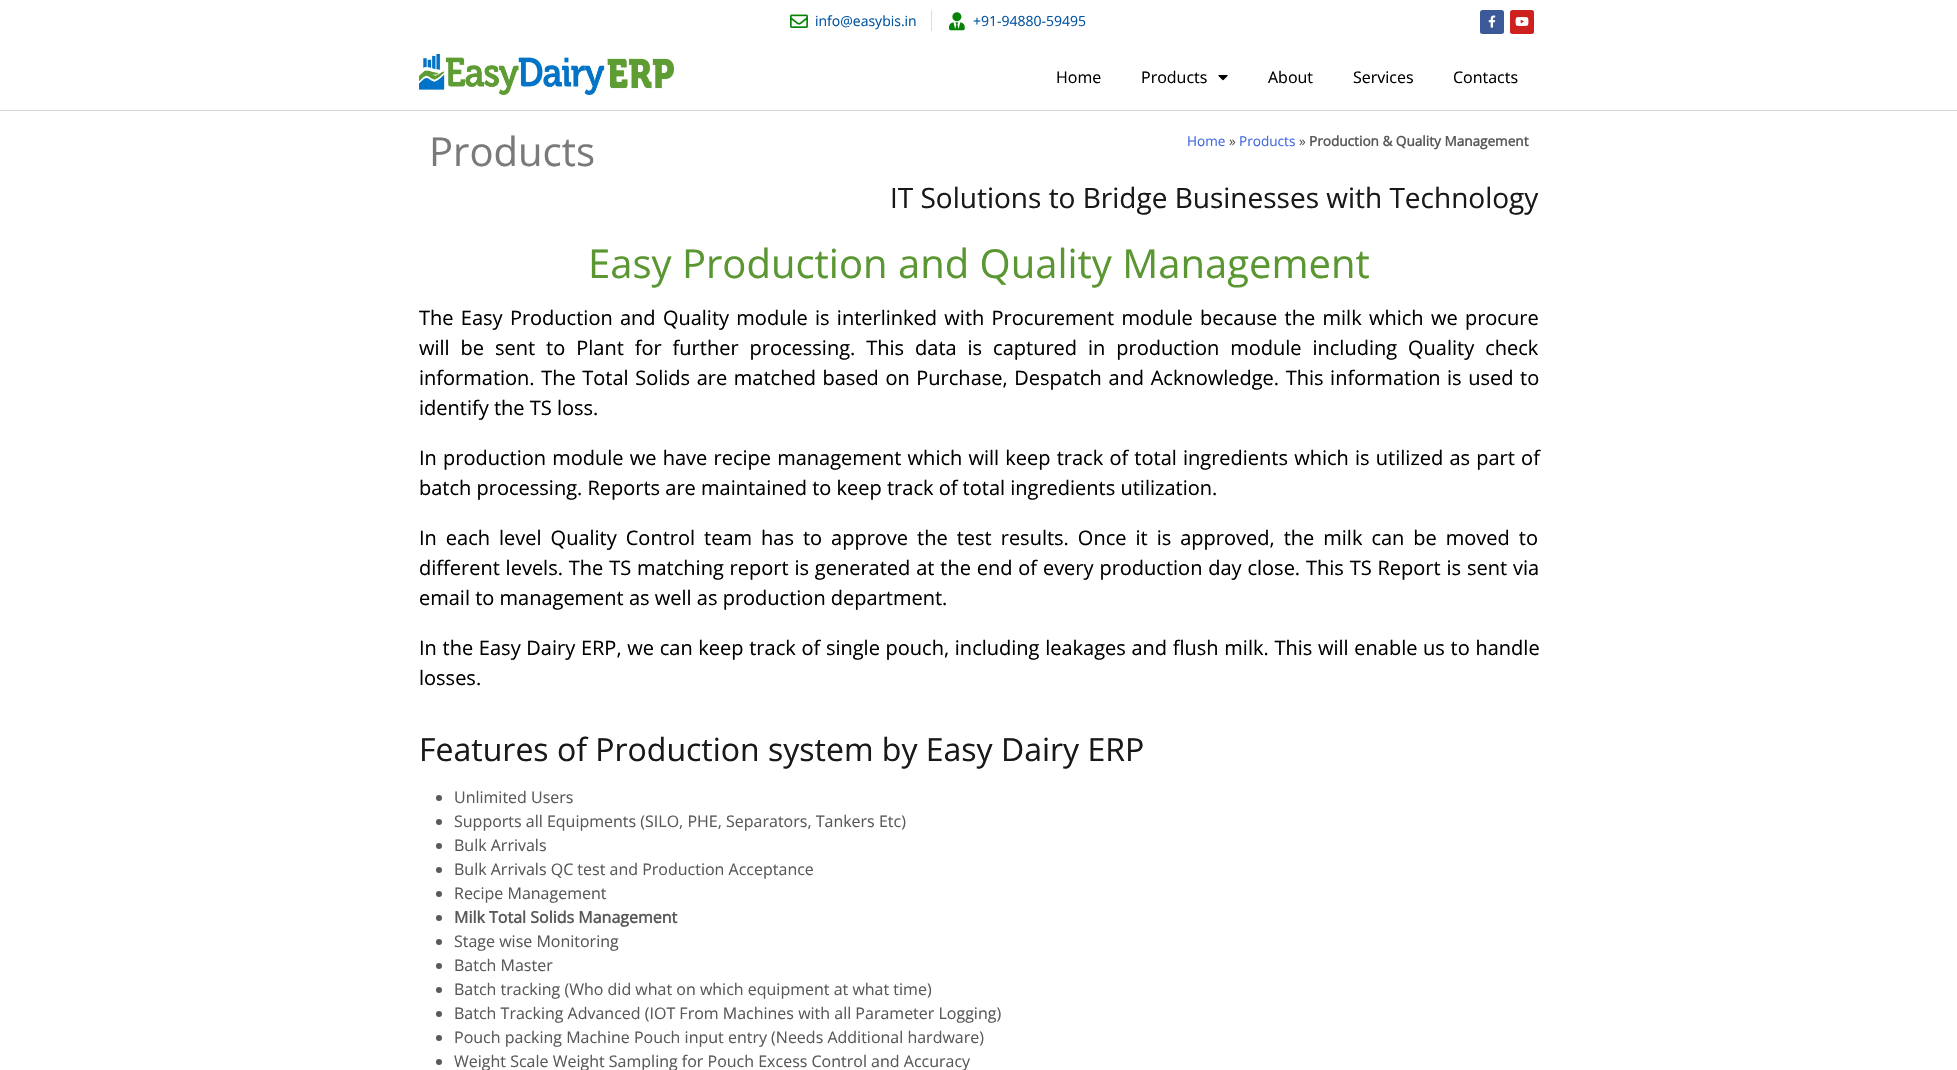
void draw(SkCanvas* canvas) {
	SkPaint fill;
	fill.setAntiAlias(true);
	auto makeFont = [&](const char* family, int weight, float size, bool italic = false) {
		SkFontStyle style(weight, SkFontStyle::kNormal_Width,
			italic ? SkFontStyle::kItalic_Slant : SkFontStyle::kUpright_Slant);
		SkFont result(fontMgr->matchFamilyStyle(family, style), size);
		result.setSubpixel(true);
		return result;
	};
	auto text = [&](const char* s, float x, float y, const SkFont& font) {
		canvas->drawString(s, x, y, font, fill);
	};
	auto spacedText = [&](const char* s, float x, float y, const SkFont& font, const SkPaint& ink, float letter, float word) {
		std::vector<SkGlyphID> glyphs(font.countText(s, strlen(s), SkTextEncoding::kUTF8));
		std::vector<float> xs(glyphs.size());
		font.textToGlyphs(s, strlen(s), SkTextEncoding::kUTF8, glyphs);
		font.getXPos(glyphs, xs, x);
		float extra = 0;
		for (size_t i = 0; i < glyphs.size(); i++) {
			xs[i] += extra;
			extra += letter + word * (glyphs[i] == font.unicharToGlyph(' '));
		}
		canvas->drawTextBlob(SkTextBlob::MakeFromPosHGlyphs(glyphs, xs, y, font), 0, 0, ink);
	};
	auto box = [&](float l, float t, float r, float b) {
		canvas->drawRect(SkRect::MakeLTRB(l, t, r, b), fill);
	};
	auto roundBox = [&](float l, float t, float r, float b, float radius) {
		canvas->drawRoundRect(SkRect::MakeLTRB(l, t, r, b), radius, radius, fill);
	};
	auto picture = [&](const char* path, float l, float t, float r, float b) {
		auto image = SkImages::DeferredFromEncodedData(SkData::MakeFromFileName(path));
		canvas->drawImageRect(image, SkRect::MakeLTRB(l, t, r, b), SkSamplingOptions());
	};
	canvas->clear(0xFFFFFFFF);
	picture("image0.png", 790, 14, 808, 28);
	fill.setColor(0xFFDDDDDD);
	box(931, 10, 932, 31);
	picture("image1.png", 949, 12, 965, 31);
	fill.setColor(0xFF3B5998);
	roundBox(1480, 10, 1504, 34, 2.5f);
	picture("image2.png", 1488, 15, 1496, 28);
	fill.setColor(0xFFCD201F);
	roundBox(1510, 10, 1534, 34, 2.5f);
	picture("image3.png", 1515, 17, 1529, 26);
	fill.setColor(0xFFD3D3D3);
	box(0, 110, 1957, 111);
	picture("image4.png", 419, 54, 674, 95);
	picture("image5.png", 1218, 75, 1228, 81);
	fill.setColor(0xFF595959);
	canvas->drawCircle(439, 798, 3, fill);
	canvas->drawCircle(439, 822, 3, fill);
	canvas->drawCircle(439, 846, 3, fill);
	canvas->drawCircle(439, 870, 3, fill);
	canvas->drawCircle(439, 894, 3, fill);
	canvas->drawCircle(439, 918, 3, fill);
	canvas->drawCircle(439, 942, 3, fill);
	canvas->drawCircle(439, 966, 3, fill);
	canvas->drawCircle(439, 990, 3, fill);
	canvas->drawCircle(439, 1014, 3, fill);
	canvas->drawCircle(439, 1038, 3, fill);
	canvas->drawCircle(439, 1062, 3, fill);
	auto font1 = makeFont("Open Sans", 400, 14);
	fill.setColor(0xFF0054A3);
	text("info@easybis.in", 815, 26, font1);
	text("+91-94880-59495", 973, 26, font1);
	auto font2 = makeFont("Open Sans", 400, 16);
	fill.setColor(0xFF000000);
	text("Home", 1056, 83, font2);
	text("Products", 1141, 83, font2);
	text("About", 1268, 83, font2);
	text("Services", 1353, 83, font2);
	text("Contacts", 1453, 83, font2);
	auto font3 = makeFont("Open Sans", 400, 40);
	fill.setColor(0xFF7A7A7A);
	text("Products", 429, 166, font3);
	auto font4 = makeFont("Open Sans", 400, 13.6f);
	fill.setColor(0xFF4169E1);
	text("Home", 1187, 146, font4);
	fill.setColor(0xFF595959);
	text("»", 1229, 146, font4);
	fill.setColor(0xFF4169E1);
	text("Products", 1239, 146, font4);
	fill.setColor(0xFF595959);
	text("»", 1299, 146, font4);
	auto font5 = makeFont("Open Sans", 700, 13.6f);
	text("Production & Quality Management", 1309, 146, font5);
	auto font6 = makeFont("Open Sans", 400, 28);
	fill.setColor(0xFF191919);
	text("IT Solutions to Bridge Businesses with Technology", 890, 208, font6);
	fill.setColor(0xFF5A9631);
	text("Easy Production and Quality Management", 588, 278, font3);
	auto font7 = makeFont("Open Sans", 400, 20);
	fill.setColor(0xFF000000);
	spacedText("The Easy Production and Quality module is interlinked with Procurement module because the milk which we procure", 419, 325, font7, fill, 0, 2.1f);
	spacedText("will be sent to Plant for further processing. This data is captured in production module including Quality check", 419, 355, font7, fill, 0, 5.75f);
	spacedText("information. The Total Solids are matched based on Purchase, Despatch and Acknowledge. This information is used to", 419, 385, font7, fill, 0, 1.4f);
	text("identify the TS loss.", 419, 415, font7);
	spacedText("In production module we have recipe management which will keep track of total ingredients which is utilized as part of", 419, 465, font7, fill, 0, 1);
	text("batch processing. Reports are maintained to keep track of total ingredients utilization.", 419, 495, font7);
	spacedText("In each level Quality Control team has to approve the test results. Once it is approved, the milk can be moved to", 419, 545, font7, fill, 0, 3.8f);
	spacedText("different levels. The TS matching report is generated at the end of every production day close. This TS Report is sent via", 419, 575, font7, fill, 0, 0.65f);
	text("email to management as well as production department.", 419, 605, font7);
	spacedText("In the Easy Dairy ERP, we can keep track of single pouch, including leakages and flush milk. This will enable us to handle", 419, 655, font7, fill, 0, 0.5f);
	text("losses.", 419, 685, font7);
	auto font8 = makeFont("Open Sans", 400, 32);
	fill.setColor(0xFF191919);
	text("Features of Production system by Easy Dairy ERP", 419, 761, font8);
	fill.setColor(0xFF595959);
	text("Unlimited Users", 454, 803, font2);
	text("Supports all Equipments (SILO, PHE, Separators, Tankers Etc)", 454, 827, font2);
	text("Bulk Arrivals", 454, 851, font2);
	text("Bulk Arrivals QC test and Production Acceptance", 454, 875, font2);
	text("Recipe Management", 454, 899, font2);
	auto font9 = makeFont("Open Sans", 700, 16);
	text("Milk Total Solids Management", 454, 923, font9);
	text("Stage wise Monitoring", 454, 947, font2);
	text("Batch Master", 454, 971, font2);
	text("Batch tracking (Who did what on which equipment at what time)", 454, 995, font2);
	text("Batch Tracking Advanced (IOT From Machines with all Parameter Logging)", 454, 1019, font2);
	text("Pouch packing Machine Pouch input entry (Needs Additional hardware)", 454, 1043, font2);
	text("Weight Scale Weight Sampling for Pouch Excess Control and Accuracy", 454, 1067, font2);
}
